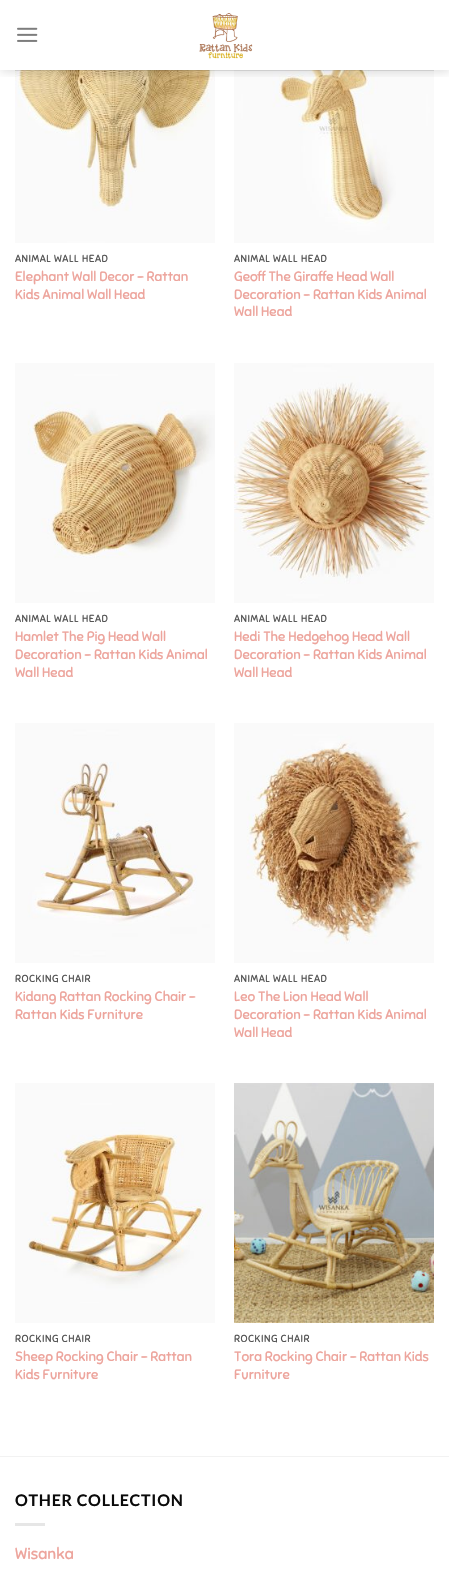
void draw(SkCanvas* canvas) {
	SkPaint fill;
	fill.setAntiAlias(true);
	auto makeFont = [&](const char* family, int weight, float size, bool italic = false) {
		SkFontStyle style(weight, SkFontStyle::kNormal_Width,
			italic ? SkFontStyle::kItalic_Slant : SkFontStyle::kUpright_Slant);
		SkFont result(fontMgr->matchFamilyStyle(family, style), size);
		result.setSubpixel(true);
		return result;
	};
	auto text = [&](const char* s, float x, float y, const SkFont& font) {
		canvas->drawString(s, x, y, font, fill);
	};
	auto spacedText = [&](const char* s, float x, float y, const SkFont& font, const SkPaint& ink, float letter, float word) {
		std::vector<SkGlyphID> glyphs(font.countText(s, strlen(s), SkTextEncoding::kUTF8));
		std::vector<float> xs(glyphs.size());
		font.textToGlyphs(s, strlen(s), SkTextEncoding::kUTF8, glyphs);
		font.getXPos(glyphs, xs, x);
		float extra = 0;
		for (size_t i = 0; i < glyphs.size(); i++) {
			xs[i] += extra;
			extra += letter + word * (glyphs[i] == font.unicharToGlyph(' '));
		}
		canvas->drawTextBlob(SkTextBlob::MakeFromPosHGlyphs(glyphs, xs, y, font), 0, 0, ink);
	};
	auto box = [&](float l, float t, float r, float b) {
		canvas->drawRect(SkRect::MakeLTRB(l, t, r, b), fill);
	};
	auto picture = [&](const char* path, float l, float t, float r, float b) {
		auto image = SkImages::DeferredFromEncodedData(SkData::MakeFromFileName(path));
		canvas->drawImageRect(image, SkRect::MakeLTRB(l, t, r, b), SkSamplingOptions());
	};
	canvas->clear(0xFFFFFFFF);
	picture("image2.png", 15, 70, 215, 243);
	picture("image3.png", 234, 70, 434, 243);
	canvas->save();
	canvas->clipRect(SkRect::MakeLTRB(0, 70, 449, 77));
	fill.setColor(0x26000000);
	fill.setMaskFilter(SkMaskFilter::MakeBlur(kNormal_SkBlurStyle, 5));
	canvas->drawRect(SkRect::MakeLTRB(1, 1, 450, 71), fill);
	fill.setMaskFilter(nullptr);
	canvas->restore();
	picture("image0.png", 17, 27, 38, 42);
	picture("image1.png", 199, 13, 253, 59);
	fill.setColor(0x1A0A0A0A);
	box(15, 70, 434, 71);
	picture("image4.png", 15, 363, 215, 603);
	picture("image5.png", 234, 363, 434, 603);
	picture("image6.png", 15, 723, 215, 963);
	picture("image7.png", 234, 723, 434, 963);
	picture("image8.png", 15, 1083, 215, 1323);
	picture("image9.png", 234, 1083, 434, 1323);
	fill.setColor(0xFFF2F2F2);
	box(0, 1456, 449, 1457);
	fill.setColor(0xFFE6E6E6);
	box(15, 1523, 45, 1526);
	auto font1 = makeFont("Sniglet", 400, 10.25f);
	fill.setColor(0xFF545454);
	spacedText("ANIMAL WALL HEAD", 15, 262, font1, fill, 0.5f, 0);
	auto font2 = makeFont("Sniglet", 400, 13.6f);
	fill.setColor(0xFFEDA49C);
	text("Elephant Wall Decor – Rattan", 15, 281, font2);
	text("Kids Animal Wall Head", 15, 299, font2);
	fill.setColor(0xFF545454);
	spacedText("ANIMAL WALL HEAD", 234, 262, font1, fill, 0.5f, 0);
	fill.setColor(0xFFEDA49C);
	text("Geoff The Giraffe Head Wall", 234, 281, font2);
	text("Decoration – Rattan Kids Animal", 234, 299, font2);
	text("Wall Head", 234, 316, font2);
	fill.setColor(0xFF545454);
	spacedText("ANIMAL WALL HEAD", 15, 622, font1, fill, 0.5f, 0);
	fill.setColor(0xFFEDA49C);
	text("Hamlet The Pig Head Wall", 15, 641, font2);
	text("Decoration – Rattan Kids Animal", 15, 659, font2);
	text("Wall Head", 15, 677, font2);
	fill.setColor(0xFF545454);
	spacedText("ANIMAL WALL HEAD", 234, 622, font1, fill, 0.5f, 0);
	fill.setColor(0xFFEDA49C);
	text("Hedi The Hedgehog Head Wall", 234, 641, font2);
	text("Decoration – Rattan Kids Animal", 234, 659, font2);
	text("Wall Head", 234, 677, font2);
	fill.setColor(0xFF545454);
	spacedText("ROCKING CHAIR", 15, 982, font1, fill, 0.5f, 0);
	fill.setColor(0xFFEDA49C);
	text("Kidang Rattan Rocking Chair –", 15, 1001, font2);
	text("Rattan Kids Furniture", 15, 1019, font2);
	fill.setColor(0xFF545454);
	spacedText("ANIMAL WALL HEAD", 234, 982, font1, fill, 0.5f, 0);
	fill.setColor(0xFFEDA49C);
	text("Leo The Lion Head Wall", 234, 1001, font2);
	text("Decoration – Rattan Kids Animal", 234, 1019, font2);
	text("Wall Head", 234, 1037, font2);
	fill.setColor(0xFF545454);
	spacedText("ROCKING CHAIR", 15, 1342, font1, fill, 0.5f, 0);
	fill.setColor(0xFFEDA49C);
	text("Sheep Rocking Chair – Rattan", 15, 1361, font2);
	text("Kids Furniture", 15, 1379, font2);
	fill.setColor(0xFF545454);
	spacedText("ROCKING CHAIR", 234, 1342, font1, fill, 0.5f, 0);
	fill.setColor(0xFFEDA49C);
	text("Tora Rocking Chair – Rattan Kids", 234, 1361, font2);
	text("Furniture", 234, 1379, font2);
	auto font3 = makeFont("Lato", 700, 16);
	fill.setColor(0xFF0A0A0A);
	spacedText("OTHER COLLECTION", 15, 1506, font3, fill, 0.75f, 0);
	auto font4 = makeFont("Sniglet", 400, 16);
	fill.setColor(0xFFEDA49C);
	text("Wisanka", 15, 1559, font4);
}
